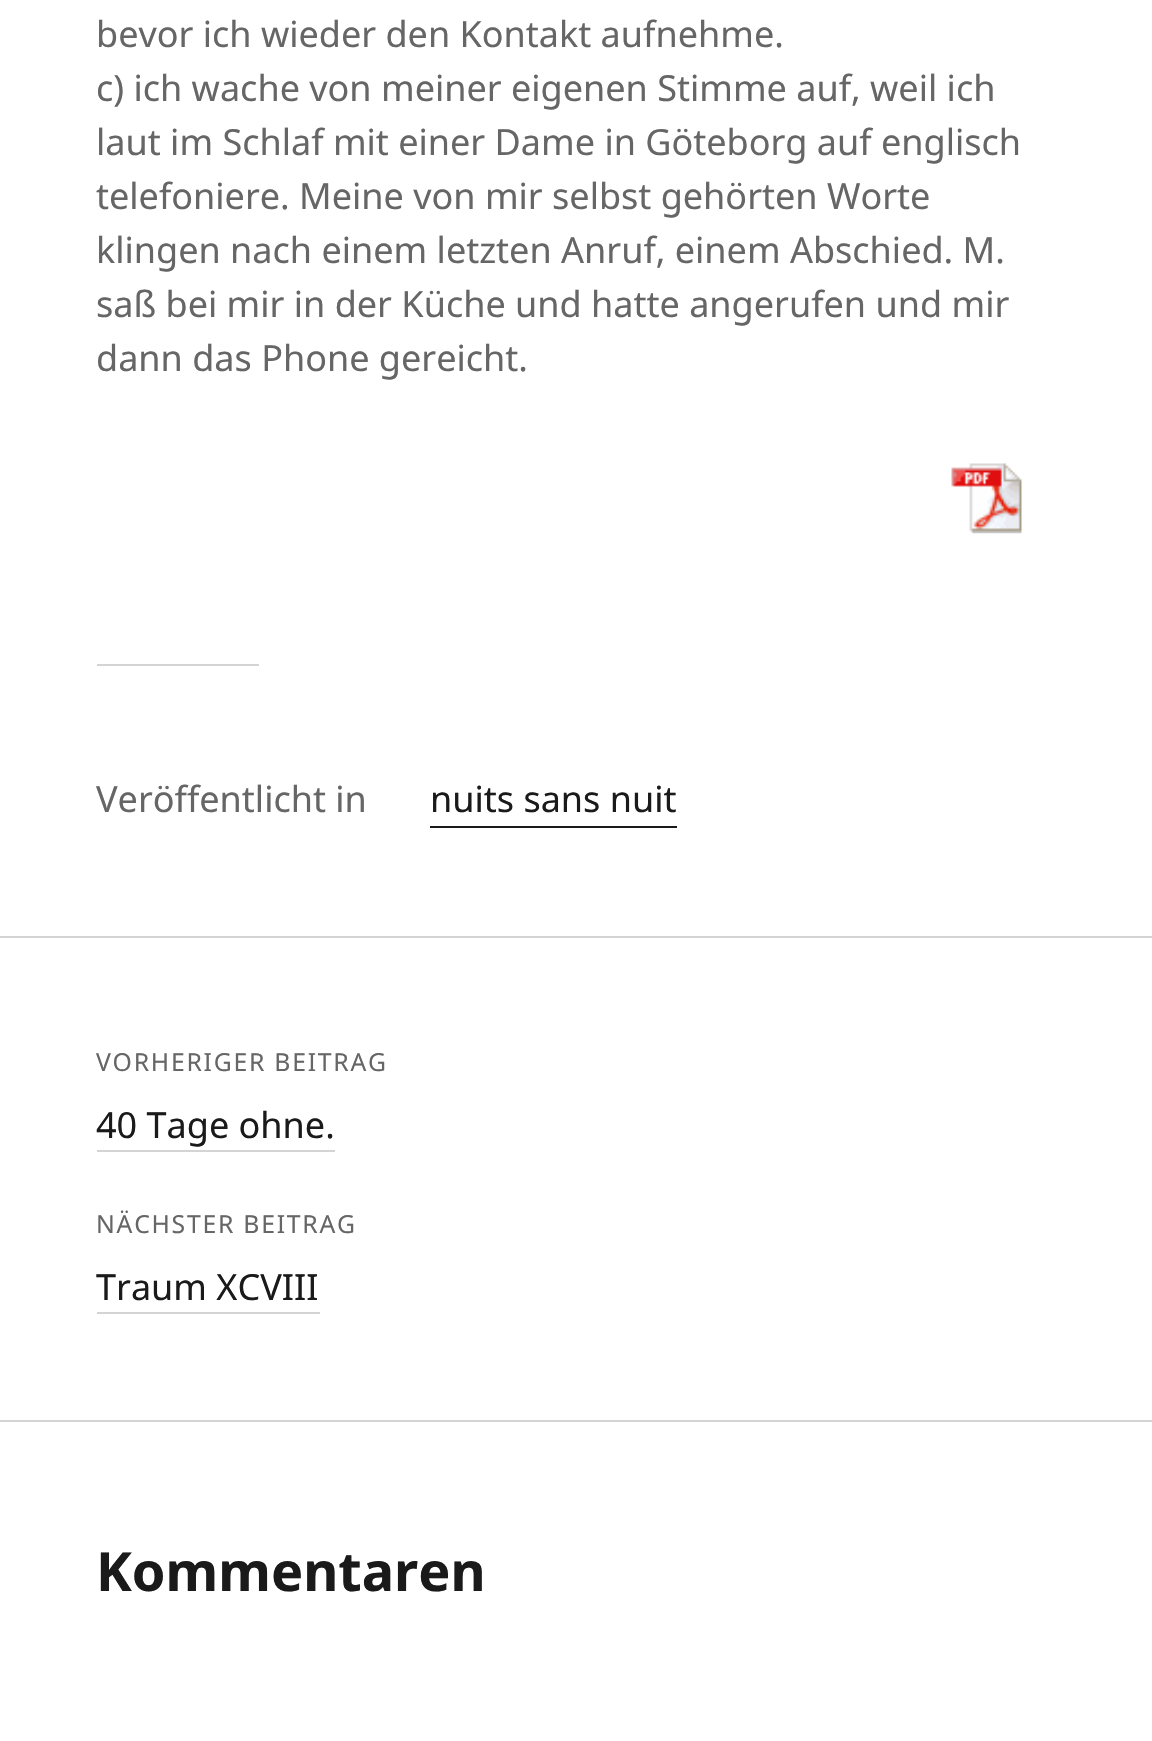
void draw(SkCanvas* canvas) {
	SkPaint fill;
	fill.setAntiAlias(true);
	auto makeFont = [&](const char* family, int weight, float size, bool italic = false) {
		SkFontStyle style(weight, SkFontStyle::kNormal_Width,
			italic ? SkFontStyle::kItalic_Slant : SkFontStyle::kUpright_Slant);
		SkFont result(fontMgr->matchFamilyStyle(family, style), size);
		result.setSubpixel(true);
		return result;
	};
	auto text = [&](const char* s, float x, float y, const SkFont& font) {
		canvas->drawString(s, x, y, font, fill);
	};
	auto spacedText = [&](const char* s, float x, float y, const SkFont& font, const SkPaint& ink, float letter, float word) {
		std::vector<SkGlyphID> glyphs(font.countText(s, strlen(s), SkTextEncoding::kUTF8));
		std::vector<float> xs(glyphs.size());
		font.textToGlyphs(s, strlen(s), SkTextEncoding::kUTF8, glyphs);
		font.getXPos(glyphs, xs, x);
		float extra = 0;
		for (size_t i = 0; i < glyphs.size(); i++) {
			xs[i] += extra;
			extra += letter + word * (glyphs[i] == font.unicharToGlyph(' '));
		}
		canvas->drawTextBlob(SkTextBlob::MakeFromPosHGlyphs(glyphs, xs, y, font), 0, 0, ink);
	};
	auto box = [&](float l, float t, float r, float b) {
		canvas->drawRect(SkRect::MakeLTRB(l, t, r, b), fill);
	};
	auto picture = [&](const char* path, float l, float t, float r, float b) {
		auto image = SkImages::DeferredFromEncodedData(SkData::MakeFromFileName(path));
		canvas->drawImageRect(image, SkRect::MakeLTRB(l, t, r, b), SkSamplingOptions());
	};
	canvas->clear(0xFFFFFFFF);
	picture("image0.png", 951, 463, 1022, 534);
	fill.setColor(0xFFD4D4D4);
	box(97, 664, 259, 666);
	fill.setColor(0xFF1A1A1A);
	box(430, 826, 677, 828);
	fill.setColor(0xFFD4D4D4);
	box(0, 936, 1152, 938);
	box(97, 1150, 335, 1152);
	box(97, 1312, 320, 1314);
	box(0, 1420, 1152, 1422);
	auto font1 = makeFont("Noto Sans", 400, 36);
	fill.setColor(0xFF666666);
	text("bevor ich wieder den Kontakt aufnehme.", 96, 47, font1);
	text("c) ich wache von meiner eigenen Stimme auf, weil ich", 96, 101, font1);
	text("laut im Schlaf mit einer Dame in Göteborg auf englisch", 96, 155, font1);
	text("telefoniere. Meine von mir selbst gehörten Worte", 96, 209, font1);
	text("klingen nach einem letzten Anruf, einem Abschied. M.", 96, 263, font1);
	text("saß bei mir in der Küche und hatte angerufen und mir", 96, 317, font1);
	text("dann das Phone gereicht.", 96, 371, font1);
	text("Veröffentlicht in", 96, 812, font1);
	fill.setColor(0xFF1A1A1A);
	text("nuits sans nuit", 430, 812, font1);
	auto font2 = makeFont("Noto Sans", 400, 24.75f);
	fill.setColor(0xFF666666);
	spacedText("VORHERIGER BEITRAG", 96, 1071, font2, fill, 1.75f, 0);
	fill.setColor(0xFF1A1A1A);
	text("40 Tage ohne.", 96, 1138, font1);
	fill.setColor(0xFF666666);
	spacedText("NÄCHSTER BEITRAG", 96, 1233, font2, fill, 1.75f, 0);
	fill.setColor(0xFF1A1A1A);
	text("Traum XCVIII", 96, 1300, font1);
	auto font3 = makeFont("Noto Sans", 700, 54);
	text("Kommentaren", 96, 1591, font3);
}
